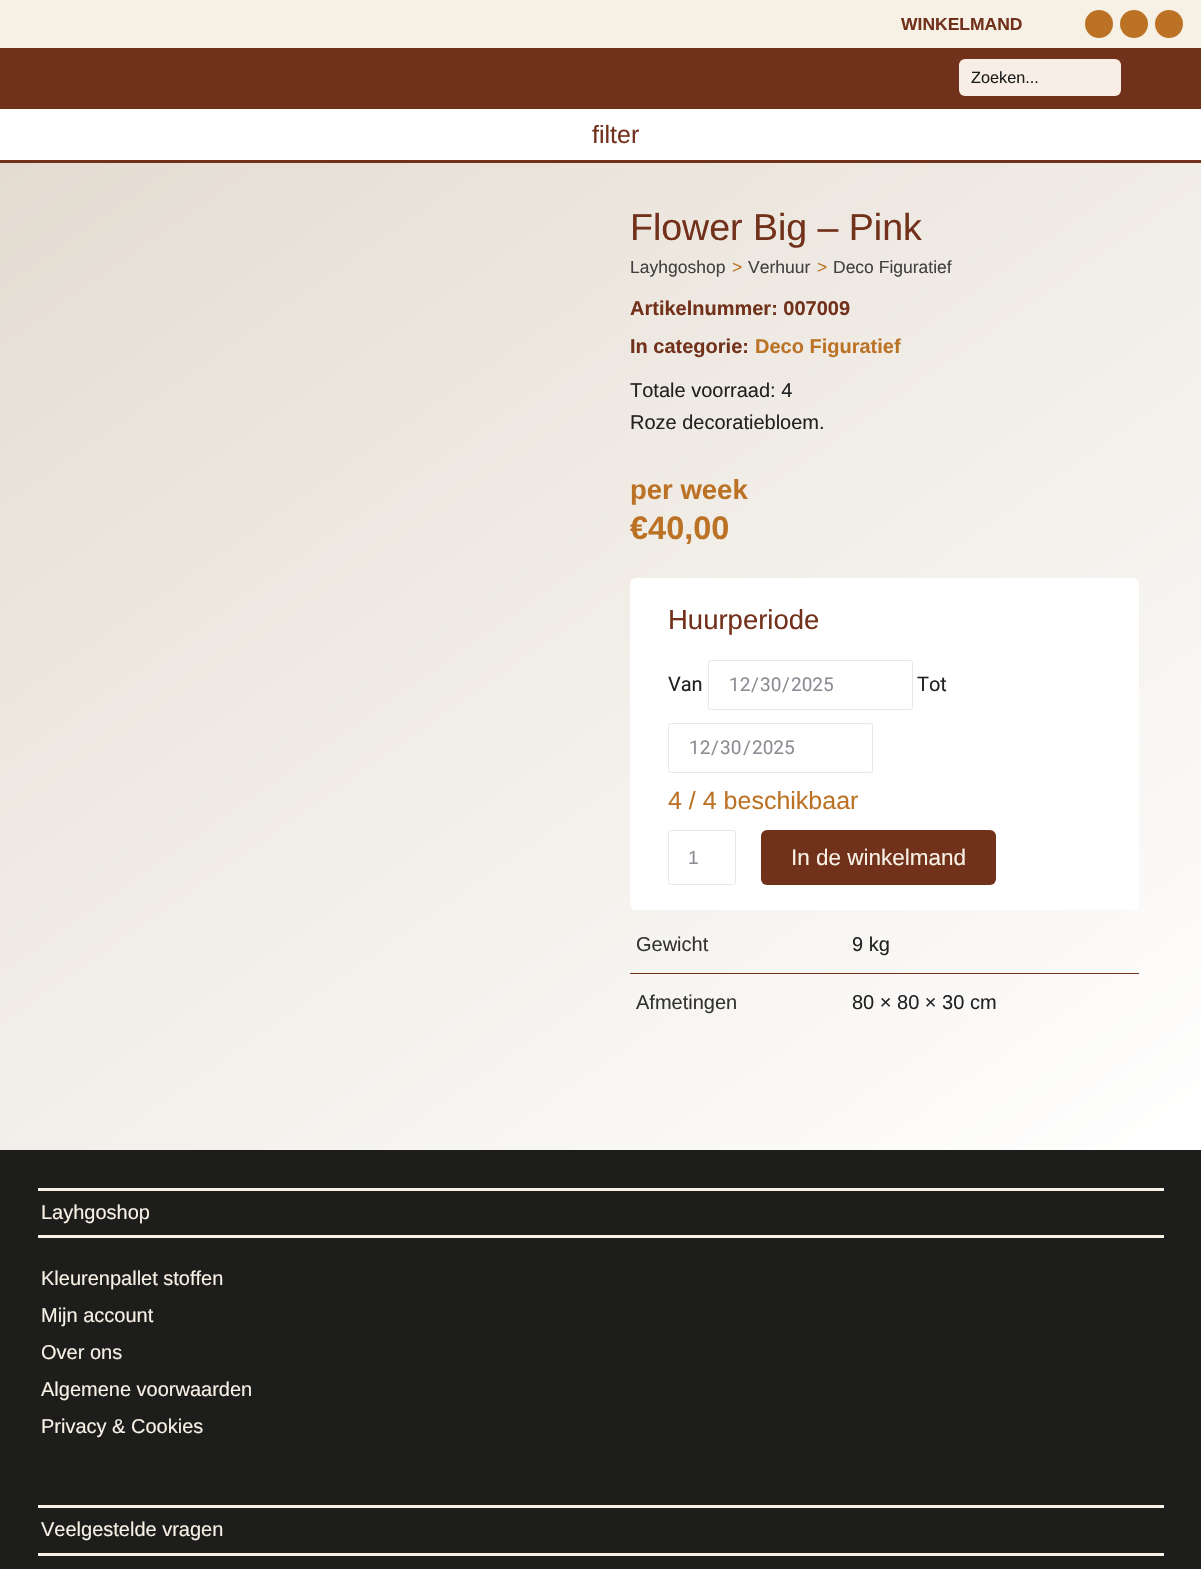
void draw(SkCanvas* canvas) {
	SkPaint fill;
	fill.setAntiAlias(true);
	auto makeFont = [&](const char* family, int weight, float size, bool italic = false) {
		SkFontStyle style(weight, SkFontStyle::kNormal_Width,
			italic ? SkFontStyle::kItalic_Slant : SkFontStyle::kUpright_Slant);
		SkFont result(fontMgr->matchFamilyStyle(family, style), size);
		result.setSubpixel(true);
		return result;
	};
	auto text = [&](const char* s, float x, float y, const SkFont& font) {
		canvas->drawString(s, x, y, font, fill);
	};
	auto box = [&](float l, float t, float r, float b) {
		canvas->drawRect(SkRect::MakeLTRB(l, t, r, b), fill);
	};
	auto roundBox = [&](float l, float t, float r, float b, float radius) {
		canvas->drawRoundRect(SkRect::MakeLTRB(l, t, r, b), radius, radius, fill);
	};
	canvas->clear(0xFFFFFFFF);
	fill.setColor(0xFFF7F0E5);
	box(0, 0, 1201, 48);
	fill.setColor(0xFFBB7225);
	canvas->drawCircle(1099, 24, 14, fill);
	canvas->drawCircle(1134, 24, 14, fill);
	canvas->drawCircle(1169, 24, 14, fill);
	fill.setColor(0xFF72311B);
	box(0, 48, 1201, 109);
	fill.setColor(0xFFF8EEE5);
	roundBox(959, 59, 1121, 96, 6);
	fill.setColor(0xFF72311B);
	box(0, 160, 1201, 163);
	{
		const SkColor colors[] = {0xFFE4DCD1, 0xFFFFFFFF};
		const float stops[] = {0, 1};
		const SkPoint ends[] = {{171, 43}, {1030, 1270}};
		fill.setShader(SkGradientShader::MakeLinear(ends, colors, stops, 2, SkTileMode::kClamp));
		fill.setAlpha(255);
	}
	box(0, 163, 1201, 1150);
	fill.setShader(nullptr);
	fill.setColor(0xFFFFFFFF);
	roundBox(630, 578, 1139, 910, 6);
	fill.setStyle(SkPaint::kStroke_Style);
	fill.setStrokeWidth(1);
	fill.setColor(0xFFE7E7E7);
	canvas->drawRoundRect(SkRect::MakeLTRB(708.5f, 660.5f, 912.5f, 709.5f), 2, 2, fill);
	canvas->drawRoundRect(SkRect::MakeLTRB(668.5f, 723.5f, 872.5f, 772.5f), 2, 2, fill);
	canvas->drawRoundRect(SkRect::MakeLTRB(668.5f, 830.5f, 735.5f, 884.5f), 2, 2, fill);
	fill.setStyle(SkPaint::kFill_Style);
	fill.setColor(0xFF72311B);
	roundBox(761, 830, 996, 885, 6);
	fill.setColor(0xFF71311B);
	box(630, 973, 1139, 974);
	fill.setColor(0xFF1D1D1B);
	box(0, 1150, 1201, 1569);
	fill.setColor(0xFFF7F0E5);
	box(38, 1188, 1164, 1191);
	box(38, 1235, 1164, 1238);
	box(38, 1505, 1164, 1508);
	box(38, 1553, 1164, 1556);
	auto font1 = makeFont("Liberation Sans", 700, 17.5f);
	fill.setColor(0xFF72311B);
	text("WINKELMAND", 901, 30, font1);
	auto font2 = makeFont("Liberation Sans", 400, 16.25f);
	fill.setColor(0xFF1D1D1B);
	text("Zoeken...", 971, 83, font2);
	auto font3 = makeFont("Liberation Sans", 400, 25);
	fill.setColor(0xFF72311B);
	text("filter", 592, 143, font3);
	auto font4 = makeFont("Liberation Sans", 400, 37.5f);
	text("Flower Big – Pink", 630, 240, font4);
	auto font5 = makeFont("Liberation Sans", 400, 17.5f);
	fill.setColor(0xFF414141);
	text("Layhgoshop", 630, 273, font5);
	fill.setColor(0xFFBB7225);
	text(">", 732, 273, font5);
	fill.setColor(0xFF414141);
	text("Verhuur", 748, 273, font5);
	fill.setColor(0xFFBB7225);
	text(">", 817, 273, font5);
	fill.setColor(0xFF414141);
	text("Deco Figuratief", 833, 273, font5);
	auto font6 = makeFont("Liberation Sans", 700, 20);
	fill.setColor(0xFF72311B);
	text("Artikelnummer: 007009", 630, 315, font6);
	text("In categorie:", 630, 353, font6);
	fill.setColor(0xFFBB7225);
	text("Deco Figuratief", 755, 353, font6);
	auto font7 = makeFont("Liberation Sans", 400, 20);
	fill.setColor(0xFF222222);
	text("Totale voorraad: 4", 630, 397, font7);
	text("Roze decoratiebloem.", 630, 429, font7);
	auto font8 = makeFont("Liberation Sans", 700, 27.5f);
	fill.setColor(0xFFBB7225);
	text("per week", 630, 499, font8);
	auto font9 = makeFont("Liberation Sans", 700, 32.5f);
	text("€40,00", 630, 539, font9);
	auto font10 = makeFont("Liberation Sans", 400, 27.5f);
	fill.setColor(0xFF72311B);
	text("Huurperiode", 668, 629, font10);
	auto font11 = makeFont("Roboto", 400, 20);
	fill.setColor(0xFF222222);
	text("Van", 668, 691, font11);
	auto font12 = makeFont("Roboto", 400, 19);
	fill.setColor(0xFF8B8D94);
	text("12", 729, 691, font12);
	text("/", 751, 691, font12);
	text("30", 760, 691, font12);
	text("/", 782, 691, font12);
	text("2025", 791, 691, font12);
	fill.setColor(0xFF222222);
	text("Tot", 917, 691, font11);
	fill.setColor(0xFF8B8D94);
	text("12", 689, 754, font12);
	text("/", 711, 754, font12);
	text("30", 720, 754, font12);
	text("/", 743, 754, font12);
	text("2025", 752, 754, font12);
	fill.setColor(0xFFBB7225);
	text("4 / 4 beschikbaar", 668, 809, font3);
	auto font13 = makeFont("Liberation Sans", 400, 19);
	fill.setColor(0xFF8B8D94);
	text("1", 688, 864, font13);
	auto font14 = makeFont("Liberation Sans", 400, 22.5f);
	fill.setColor(0xFFF7F0E5);
	text("In de winkelmand", 791, 865, font14);
	fill.setColor(0xFF333333);
	text("Gewicht", 636, 951, font7);
	fill.setColor(0xFF222222);
	text("9 kg", 852, 951, font7);
	fill.setColor(0xFF333333);
	text("Afmetingen", 636, 1009, font7);
	fill.setColor(0xFF222222);
	text("80 × 80 × 30 cm", 852, 1009, font7);
	fill.setColor(0xFFF7F0E5);
	text("Layhgoshop", 41, 1219, font7);
	text("Kleurenpallet stoffen", 41, 1285, font7);
	text("Mijn account", 41, 1322, font7);
	text("Over ons", 41, 1359, font7);
	text("Algemene voorwaarden", 41, 1396, font7);
	text("Privacy & Cookies", 41, 1433, font7);
	text("Veelgestelde vragen", 41, 1536, font7);
}
